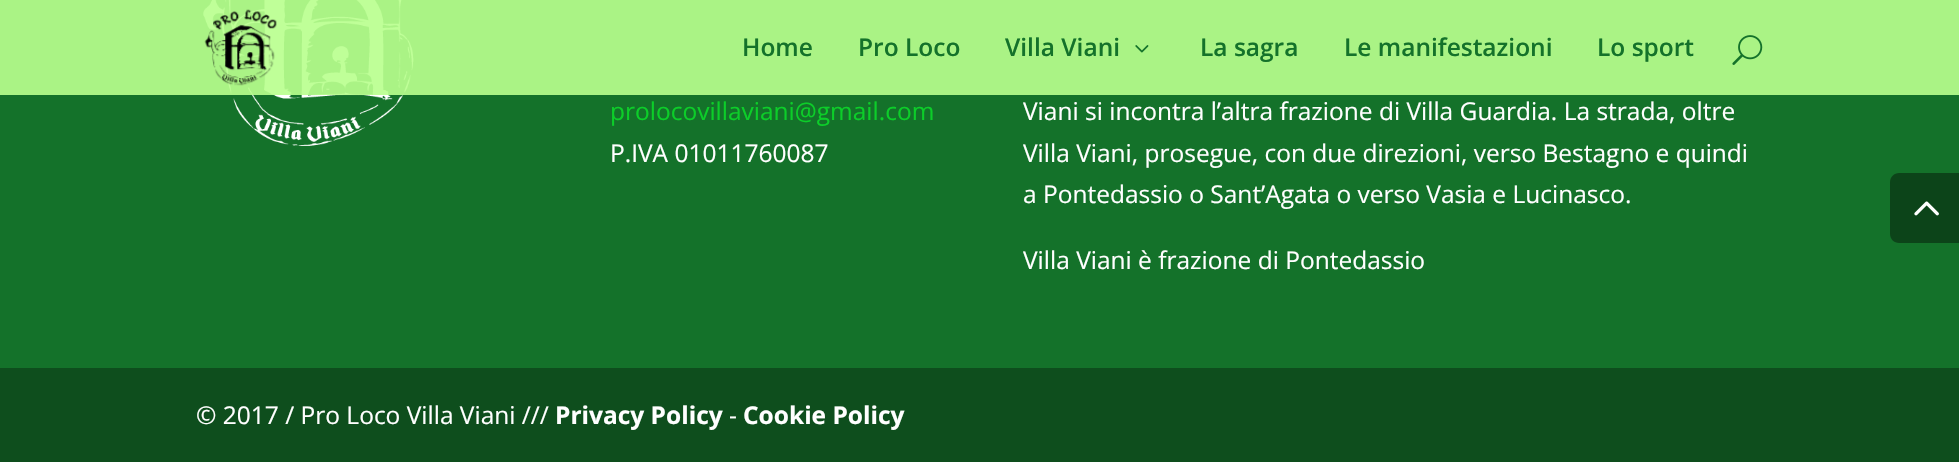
void draw(SkCanvas* canvas) {
	SkPaint fill;
	fill.setAntiAlias(true);
	auto makeFont = [&](const char* family, int weight, float size, bool italic = false) {
		SkFontStyle style(weight, SkFontStyle::kNormal_Width,
			italic ? SkFontStyle::kItalic_Slant : SkFontStyle::kUpright_Slant);
		SkFont result(fontMgr->matchFamilyStyle(family, style), size);
		result.setSubpixel(true);
		return result;
	};
	auto text = [&](const char* s, float x, float y, const SkFont& font) {
		canvas->drawString(s, x, y, font, fill);
	};
	auto box = [&](float l, float t, float r, float b) {
		canvas->drawRect(SkRect::MakeLTRB(l, t, r, b), fill);
	};
	auto picture = [&](const char* path, float l, float t, float r, float b) {
		auto image = SkImages::DeferredFromEncodedData(SkData::MakeFromFileName(path));
		canvas->drawImageRect(image, SkRect::MakeLTRB(l, t, r, b), SkSamplingOptions());
	};
	canvas->clear(0xFF14722A);
	picture("image3.png", 203, 0, 414, 146);
	fill.setColor(0xE8B9FF8E);
	box(0, 0, 1959, 95);
	picture("image0.png", 204, 9, 277, 86);
	picture("image1.png", 1135, 45, 1149, 53);
	picture("image2.png", 1732, 35, 1763, 65);
	fill.setColor(0xFF0E4E1D);
	box(0, 368, 1959, 462);
	fill.setColor(0xFF0C4419);
	canvas->drawPath(SkPathBuilder().moveTo(1899, 173).lineTo(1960, 173).lineTo(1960, 243).lineTo(1899, 243).cubicTo(1894, 243, 1890, 239, 1890, 234).lineTo(1890, 182).cubicTo(1890, 177, 1894, 173, 1899, 173).close().detach(), fill);
	picture("image4.png", 1914, 201, 1939, 216);
	auto font1 = makeFont("Open Sans", 600, 24.5f);
	fill.setColor(0xFF14722A);
	text("Home", 742, 56, font1);
	text("Pro Loco", 858, 56, font1);
	text("Villa Viani", 1005, 56, font1);
	text("La sagra", 1200, 56, font1);
	text("Le manifestazioni", 1344, 56, font1);
	text("Lo sport", 1597, 56, font1);
	auto font2 = makeFont("Open Sans", 400, 24.5f);
	fill.setColor(0xFF0CCE29);
	text("prolocovillaviani@gmail.com", 610, 120, font2);
	fill.setColor(0xFFFFFFFF);
	text("P.IVA 01011760087", 610, 162, font2);
	text("Viani si incontra l’altra frazione di Villa Guardia. La strada, oltre", 1023, 120, font2);
	text("Villa Viani, prosegue, con due direzioni, verso Bestagno e quindi", 1023, 162, font2);
	text("a Pontedassio o Sant’Agata o verso Vasia e Lucinasco.", 1023, 203, font2);
	text("Villa Viani è frazione di Pontedassio", 1023, 269, font2);
	text("© 2017 / Pro Loco Villa Viani ///", 196, 424, font2);
	auto font3 = makeFont("Open Sans", 700, 24.5f);
	text("Privacy Policy", 555, 424, font3);
	text("-", 729, 424, font2);
	text("Cookie Policy", 743, 424, font3);
}
